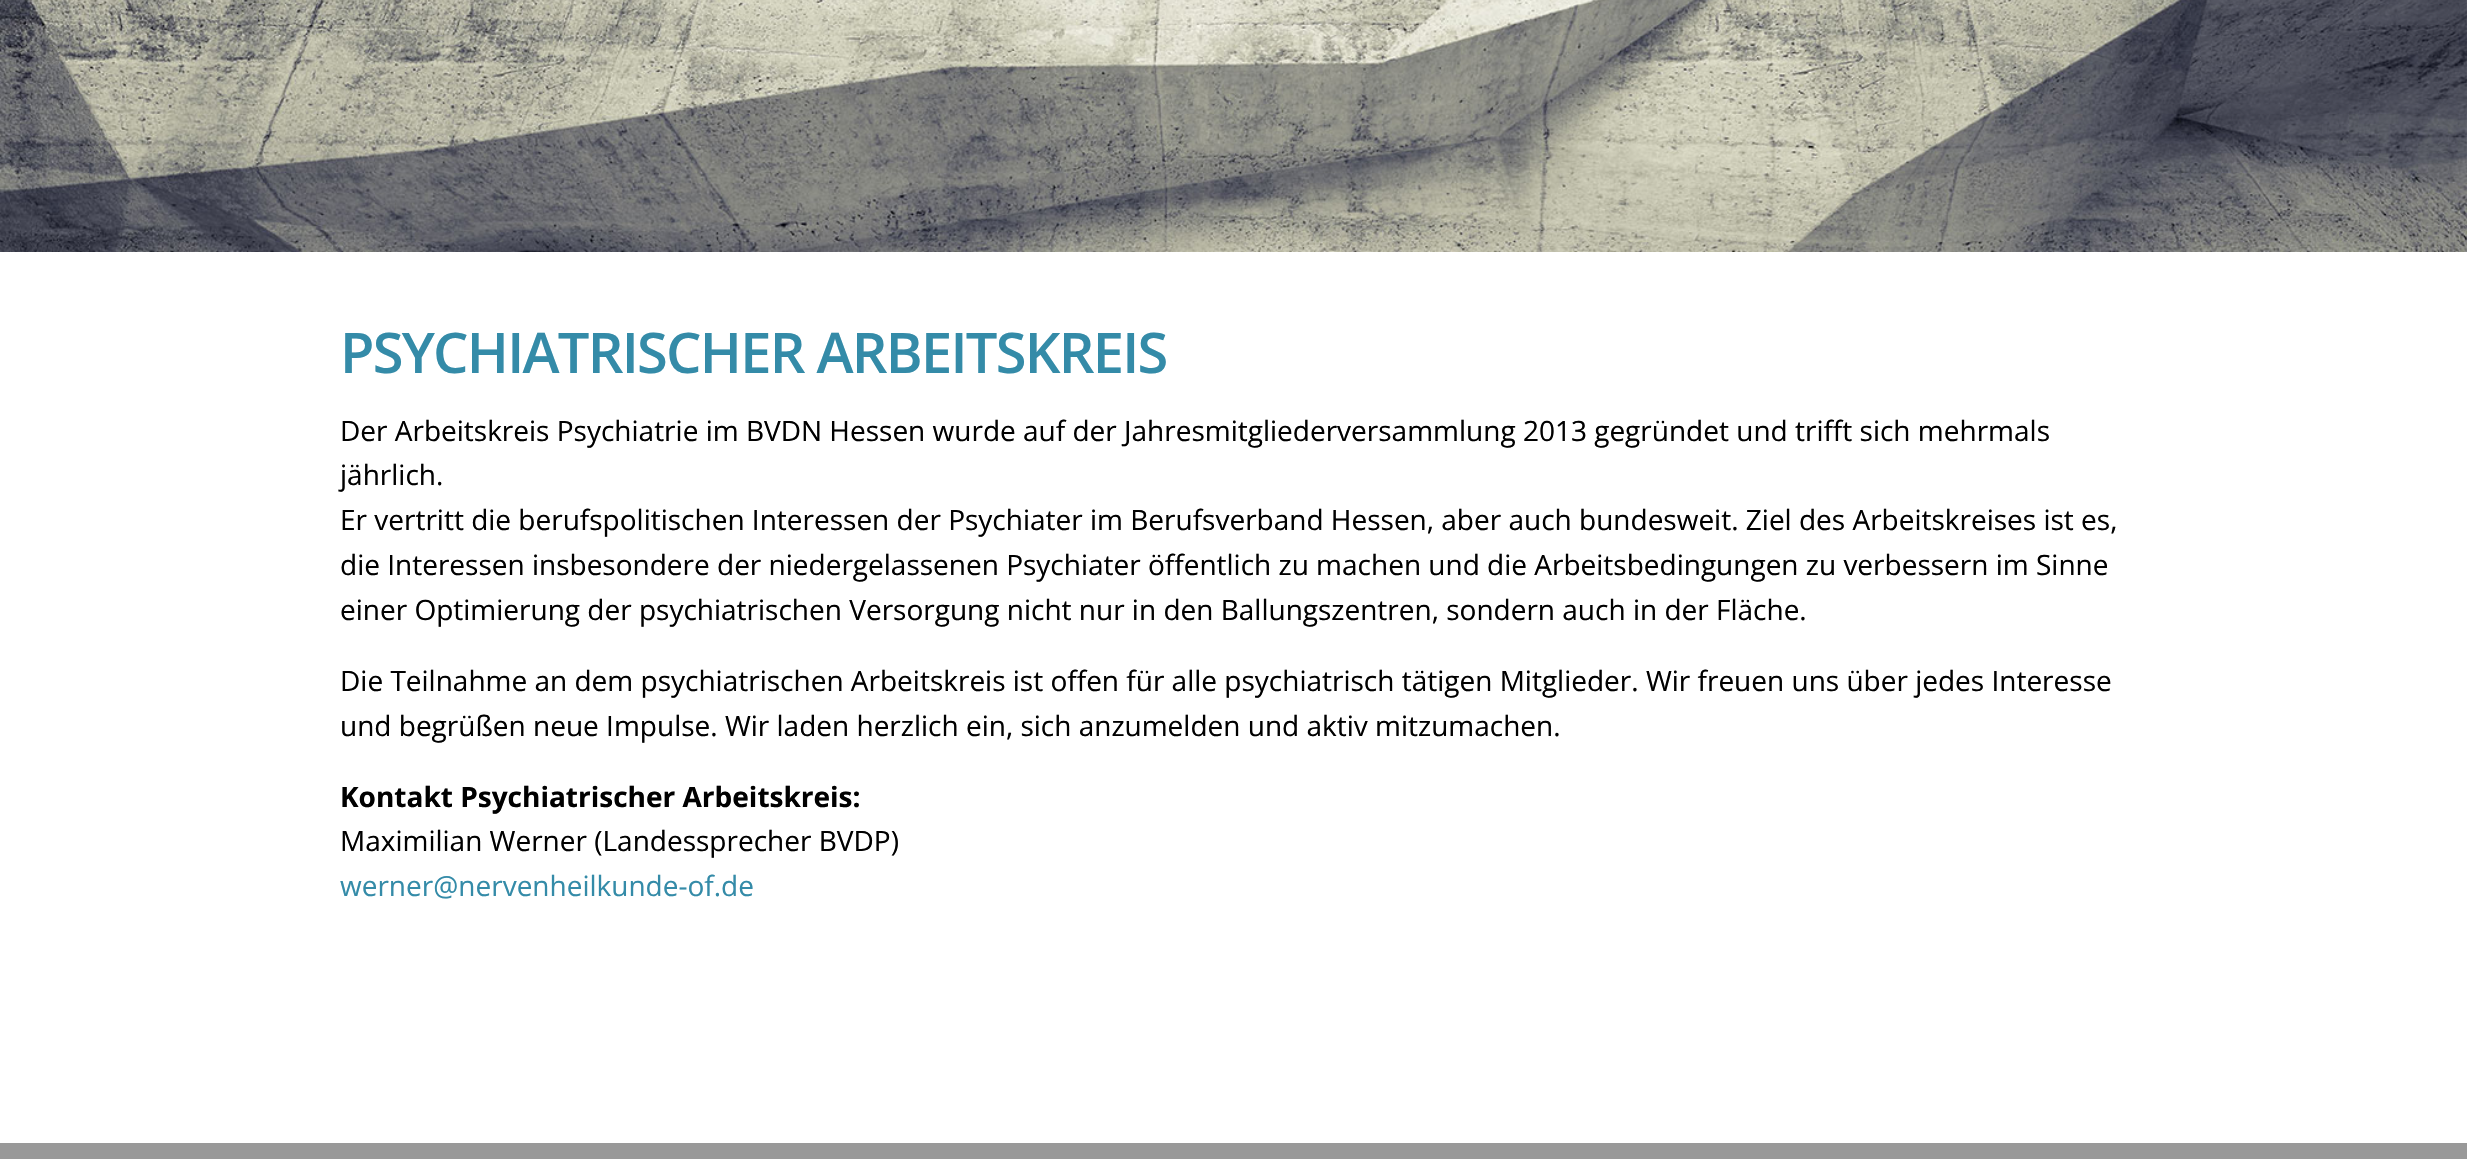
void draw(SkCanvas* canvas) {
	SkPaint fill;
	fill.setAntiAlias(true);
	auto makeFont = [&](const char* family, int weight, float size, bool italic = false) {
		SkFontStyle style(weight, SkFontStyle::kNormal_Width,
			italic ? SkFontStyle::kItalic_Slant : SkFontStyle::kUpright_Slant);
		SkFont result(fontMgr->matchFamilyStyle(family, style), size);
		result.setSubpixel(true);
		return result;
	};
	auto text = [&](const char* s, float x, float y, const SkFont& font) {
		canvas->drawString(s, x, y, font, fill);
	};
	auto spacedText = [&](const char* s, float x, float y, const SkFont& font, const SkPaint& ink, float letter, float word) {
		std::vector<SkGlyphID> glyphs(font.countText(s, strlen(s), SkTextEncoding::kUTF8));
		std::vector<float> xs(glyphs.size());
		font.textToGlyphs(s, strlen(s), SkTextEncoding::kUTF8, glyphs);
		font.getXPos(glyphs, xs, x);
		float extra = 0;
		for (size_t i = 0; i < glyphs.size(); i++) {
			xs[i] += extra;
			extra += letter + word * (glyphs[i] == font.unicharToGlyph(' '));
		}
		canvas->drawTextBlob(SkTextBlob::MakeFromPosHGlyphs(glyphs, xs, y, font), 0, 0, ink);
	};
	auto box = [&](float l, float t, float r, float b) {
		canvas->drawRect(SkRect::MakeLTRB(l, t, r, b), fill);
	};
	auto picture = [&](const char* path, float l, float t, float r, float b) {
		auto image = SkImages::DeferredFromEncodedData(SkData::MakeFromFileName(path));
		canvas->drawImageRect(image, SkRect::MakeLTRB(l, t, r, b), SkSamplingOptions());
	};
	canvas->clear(0xFFFFFFFF);
	picture("image0.png", 0, 0, 2467, 252);
	fill.setColor(0xFF999999);
	box(0, 1143, 2467, 1159);
	auto font1 = makeFont("Open Sans", 600, 56);
	fill.setColor(0xFF348BA8);
	spacedText("PSYCHIATRISCHER ARBEITSKREIS", 340, 373, font1, fill, -1.75f, 0);
	auto font2 = makeFont("Open Sans", 400, 28);
	fill.setColor(0xFF000000);
	text("Der Arbeitskreis Psychiatrie im BVDN Hessen wurde auf der Jahresmitgliederversammlung 2013 gegründet und trifft sich mehrmals", 340, 441, font2);
	text("jährlich.", 340, 485, font2);
	text("Er vertritt die berufspolitischen Interessen der Psychiater im Berufsverband Hessen, aber auch bundesweit. Ziel des Arbeitskreises ist es,", 340, 530, font2);
	text("die Interessen insbesondere der niedergelassenen Psychiater öffentlich zu machen und die Arbeitsbedingungen zu verbessern im Sinne", 340, 575, font2);
	text("einer Optimierung der psychiatrischen Versorgung nicht nur in den Ballungszentren, sondern auch in der Fläche.", 340, 620, font2);
	text("Die Teilnahme an dem psychiatrischen Arbeitskreis ist offen für alle psychiatrisch tätigen Mitglieder. Wir freuen uns über jedes Interesse", 340, 691, font2);
	text("und begrüßen neue Impulse. Wir laden herzlich ein, sich anzumelden und aktiv mitzumachen.", 340, 736, font2);
	auto font3 = makeFont("Open Sans", 700, 28);
	text("Kontakt Psychiatrischer Arbeitskreis:", 340, 807, font3);
	text("Maximilian Werner (Landessprecher BVDP)", 340, 851, font2);
	fill.setColor(0xFF348BA8);
	text("werner@nervenheilkunde-of.de", 340, 896, font2);
}
